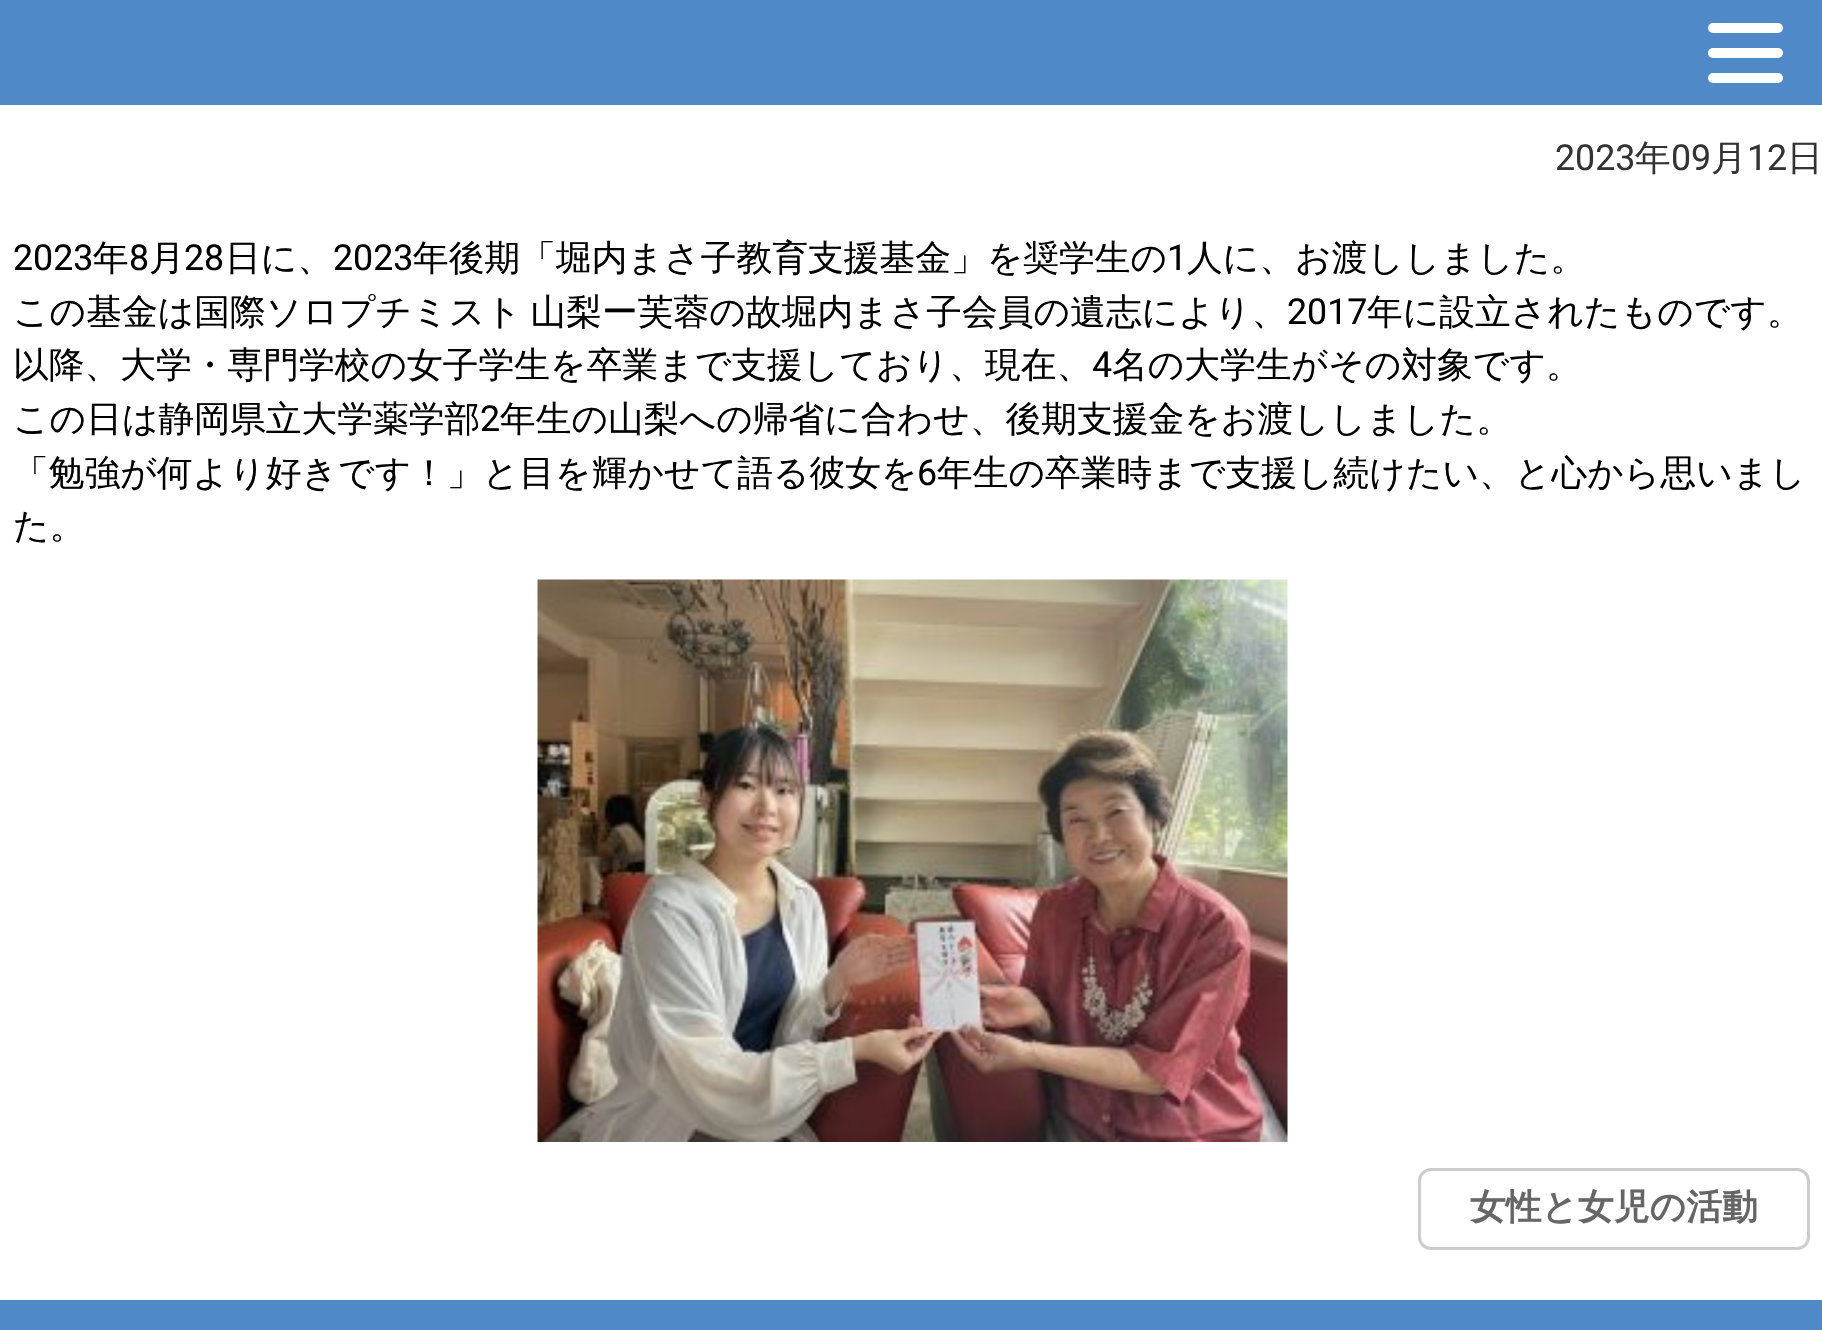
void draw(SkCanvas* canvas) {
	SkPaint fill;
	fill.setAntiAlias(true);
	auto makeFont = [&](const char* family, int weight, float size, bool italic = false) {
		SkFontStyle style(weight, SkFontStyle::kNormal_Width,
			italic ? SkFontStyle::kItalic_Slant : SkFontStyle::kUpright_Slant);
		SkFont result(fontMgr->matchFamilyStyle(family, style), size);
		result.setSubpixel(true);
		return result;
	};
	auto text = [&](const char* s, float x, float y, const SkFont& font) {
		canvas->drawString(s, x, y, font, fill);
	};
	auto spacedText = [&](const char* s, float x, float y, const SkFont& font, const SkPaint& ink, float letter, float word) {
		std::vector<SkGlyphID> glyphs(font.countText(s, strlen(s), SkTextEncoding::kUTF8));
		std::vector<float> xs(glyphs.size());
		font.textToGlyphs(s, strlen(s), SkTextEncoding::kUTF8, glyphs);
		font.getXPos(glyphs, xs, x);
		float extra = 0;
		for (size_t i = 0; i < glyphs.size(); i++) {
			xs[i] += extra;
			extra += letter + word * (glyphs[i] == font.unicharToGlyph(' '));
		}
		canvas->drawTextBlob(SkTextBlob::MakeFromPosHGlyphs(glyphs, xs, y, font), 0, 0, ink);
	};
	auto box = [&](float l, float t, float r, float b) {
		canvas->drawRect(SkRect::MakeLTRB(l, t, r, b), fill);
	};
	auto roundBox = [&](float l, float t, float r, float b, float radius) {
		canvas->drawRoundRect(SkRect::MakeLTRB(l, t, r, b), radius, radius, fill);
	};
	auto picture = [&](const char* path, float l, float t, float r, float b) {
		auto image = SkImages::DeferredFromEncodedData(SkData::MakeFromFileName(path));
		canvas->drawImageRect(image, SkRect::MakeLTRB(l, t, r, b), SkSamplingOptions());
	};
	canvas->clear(0xFFFFFFFF);
	fill.setColor(0xFF5089C7);
	box(0, 0, 1822, 105);
	fill.setColor(0xFFFFFFFF);
	roundBox(1708, 23, 1783, 33, 5);
	roundBox(1708, 48, 1783, 58, 5);
	roundBox(1708, 73, 1783, 83, 5);
	picture("image0.png", 537, 579, 1288, 1142);
	fill.setStyle(SkPaint::kStroke_Style);
	fill.setStrokeWidth(3);
	fill.setColor(0xFFCCCCCC);
	canvas->drawRoundRect(SkRect::MakeLTRB(1419.5f, 1169.5f, 1808.5f, 1248.5f), 11.5f, 11.5f, fill);
	fill.setStyle(SkPaint::kFill_Style);
	fill.setColor(0xFF5089C7);
	box(0, 1300, 1822, 1330);
	auto font1 = makeFont("Roboto", 400, 35.75f);
	fill.setColor(0xFF333333);
	text("2023", 1555, 170, font1);
	auto font2 = makeFont("WenQuanYi Zen Hei", 500, 35.75f);
	text("年", 1635, 170, font2);
	text("09", 1671, 170, font1);
	text("月", 1711, 170, font2);
	text("12", 1747, 170, font1);
	text("日", 1787, 170, font2);
	fill.setColor(0xFF000000);
	text("2023", 13, 270, font1);
	text("年", 93, 270, font2);
	text("8", 129, 270, font1);
	text("月", 149, 270, font2);
	text("28", 184, 270, font1);
	text("日に、", 225, 270, font2);
	text("2023", 333, 270, font1);
	text("年後期「堀内まさ子教育支援基金」を奨学生の", 413, 270, font2);
	text("1", 1167, 270, font1);
	text("人に、お渡ししました。", 1187, 270, font2);
	spacedText("この基金は国際ソロプチミスト 山梨ー芙蓉の故堀内まさ子会員の遺志により、", 13, 324, font2, fill, 0, -2);
	text("2017", 1287, 324, font1);
	text("年に設立されたものです。", 1367, 324, font2);
	text("以降、大学・専門学校の女子学生を卒業まで支援しており、現在、", 13, 377, font2);
	text("4", 1092, 377, font1);
	text("名の大学生がその対象です。", 1112, 377, font2);
	text("この日は静岡県立大学薬学部", 13, 431, font2);
	text("2", 480, 431, font1);
	text("年生の山梨への帰省に合わせ、後期支援金をお渡ししました。", 500, 431, font2);
	text("「勉強が何より好きです！」と目を輝かせて語る彼女を", 13, 485, font2);
	text("6", 917, 485, font1);
	text("年生の卒業時まで支援し続けたい、と心から思いまし", 937, 485, font2);
	text("た。", 13, 538, font2);
	auto font3 = makeFont("WenQuanYi Zen Hei", 700, 35.75f);
	fill.setColor(0xFF666666);
	text("女性と女児の活動", 1470, 1219, font3);
}
